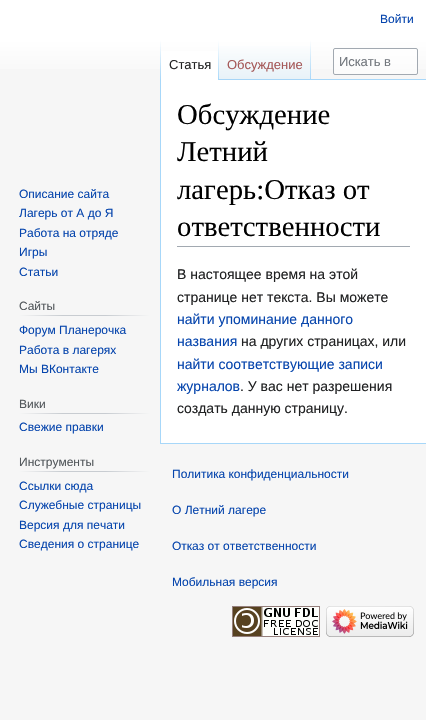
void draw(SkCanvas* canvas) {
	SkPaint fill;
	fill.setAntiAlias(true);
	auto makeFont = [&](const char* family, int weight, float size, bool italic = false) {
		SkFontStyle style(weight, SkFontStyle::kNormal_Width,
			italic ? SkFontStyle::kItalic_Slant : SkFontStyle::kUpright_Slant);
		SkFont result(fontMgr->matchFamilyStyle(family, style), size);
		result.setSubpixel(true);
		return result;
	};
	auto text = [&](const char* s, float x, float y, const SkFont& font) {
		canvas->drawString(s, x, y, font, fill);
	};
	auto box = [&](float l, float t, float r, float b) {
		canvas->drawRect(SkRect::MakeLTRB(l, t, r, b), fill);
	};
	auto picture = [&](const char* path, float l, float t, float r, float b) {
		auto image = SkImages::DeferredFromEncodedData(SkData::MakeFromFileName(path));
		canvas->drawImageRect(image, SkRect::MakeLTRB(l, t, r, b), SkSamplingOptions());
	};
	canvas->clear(0xFFF6F6F6);
	{
		const SkColor colors[] = {0xFFFFFFFF, 0xFFF6F6F6};
		const float stops[] = {0.5f, 1};
		const SkPoint ends[] = {{213, 0}, {213, 80}};
		fill.setShader(SkGradientShader::MakeLinear(ends, colors, stops, 2, SkTileMode::kClamp));
		fill.setAlpha(255);
	}
	box(0, 0, 426, 69);
	fill.setShader(nullptr);
	fill.setColor(0xFFA7D7F9);
	box(160, 443, 426, 444);
	box(160, 79, 161, 444);
	{
		const SkColor colors[] = {0x00A7D7F9, 0xFFA7D7F9};
		const float stops[] = {0, 1};
		const SkPoint ends[] = {{161, 40}, {161, 80}};
		fill.setShader(SkGradientShader::MakeLinear(ends, colors, stops, 2, SkTileMode::kClamp));
		fill.setAlpha(255);
	}
	box(160, 40, 161, 80);
	fill.setShader(nullptr);
	fill.setColor(0xFFFFFFFF);
	box(161, 51, 218, 80);
	{
		const SkColor colors[] = {0xFFFFFFFF, 0xFFA7D7F9};
		const float stops[] = {0, 1};
		const SkPoint ends[] = {{219, 40}, {219, 80}};
		fill.setShader(SkGradientShader::MakeLinear(ends, colors, stops, 2, SkTileMode::kClamp));
		fill.setAlpha(255);
	}
	box(218, 40, 219, 80);
	{
		const SkColor colors[] = {0xFF77C1F6, 0xFFE8F2F8, 0xFFFFFFFF};
		const float stops[] = {0, 0.03f, 1};
		const SkPoint ends[] = {{265, 80}, {265, 40}};
		fill.setShader(SkGradientShader::MakeLinear(ends, colors, stops, 3, SkTileMode::kClamp));
		fill.setAlpha(255);
	}
	box(219, 46, 311, 80);
	{
		const SkColor colors[] = {0x00A7D7F9, 0xFFA7D7F9};
		const float stops[] = {0, 1};
		const SkPoint ends[] = {{311, 40}, {311, 80}};
		fill.setShader(SkGradientShader::MakeLinear(ends, colors, stops, 2, SkTileMode::kClamp));
		fill.setAlpha(255);
	}
	box(310, 40, 311, 80);
	fill.setShader(nullptr);
	fill.setColor(0x80FFFFFF);
	canvas->drawRoundRect(SkRect::MakeLTRB(333.5f, 48.5f, 417.5f, 74.5f), 1.5f, 1.5f, fill);
	fill.setStyle(SkPaint::kStroke_Style);
	fill.setStrokeWidth(1);
	fill.setColor(0xFFA2A9B1);
	canvas->drawRoundRect(SkRect::MakeLTRB(333.5f, 48.5f, 417.5f, 74.5f), 1.5f, 1.5f, fill);
	fill.setStyle(SkPaint::kFill_Style);
	{
		const SkColor colors[] = {0xFFF6F6F6, 0xFFC8CCD1, 0xFFC8CCD1, 0xFFF6F6F6};
		const float stops[] = {0, 0.33f, 0.66f, 1};
		const SkPoint ends[] = {{19, 316}, {150, 316}};
		fill.setShader(SkGradientShader::MakeLinear(ends, colors, stops, 4, SkTileMode::kClamp));
		fill.setAlpha(255);
	}
	box(19, 315, 150, 316);
	{
		const SkColor colors[] = {0xFFF6F6F6, 0xFFC8CCD1, 0xFFC8CCD1, 0xFFF6F6F6};
		const float stops[] = {0, 0.33f, 0.66f, 1};
		const SkPoint ends[] = {{19, 414}, {150, 414}};
		fill.setShader(SkGradientShader::MakeLinear(ends, colors, stops, 4, SkTileMode::kClamp));
		fill.setAlpha(255);
	}
	box(19, 413, 150, 414);
	{
		const SkColor colors[] = {0xFFF6F6F6, 0xFFC8CCD1, 0xFFC8CCD1, 0xFFF6F6F6};
		const float stops[] = {0, 0.33f, 0.66f, 1};
		const SkPoint ends[] = {{19, 472}, {150, 472}};
		fill.setShader(SkGradientShader::MakeLinear(ends, colors, stops, 4, SkTileMode::kClamp));
		fill.setAlpha(255);
	}
	box(19, 471, 150, 472);
	fill.setShader(nullptr);
	fill.setColor(0xFFFFFFFF);
	box(161, 80, 426, 443);
	fill.setColor(0xFFA7D7F9);
	box(311, 79, 426, 80);
	fill.setColor(0xFFA2A9B1);
	box(177, 246, 410, 247);
	picture("image0.png", 232, 606, 320, 637);
	picture("image1.png", 326, 606, 414, 637);
	auto font1 = makeFont("Liberation Sans", 400, 12);
	fill.setColor(0xFF0645AD);
	text("Войти", 380, 23, font1);
	auto font2 = makeFont("Liberation Sans", 400, 13);
	fill.setColor(0xFF202122);
	text("Статья", 169, 69, font2);
	fill.setColor(0xFFA55858);
	text("Обсуждение", 227, 69, font2);
	fill.setColor(0xFF72777D);
	text("Искать в", 339, 66, font2);
	fill.setColor(0xFF0645AD);
	text("Описание сайта", 19, 198, font1);
	text("Лагерь от А до Я", 19, 217, font1);
	text("Работа на отряде", 19, 237, font1);
	text("Игры", 19, 256, font1);
	text("Статьи", 19, 276, font1);
	fill.setColor(0xFF54595D);
	text("Сайты", 19, 310, font1);
	fill.setColor(0xFF0645AD);
	text("Форум Планерочка", 19, 334, font1);
	text("Работа в лагерях", 19, 354, font1);
	text("Мы ВКонтакте", 19, 373, font1);
	fill.setColor(0xFF54595D);
	text("Вики", 19, 408, font1);
	fill.setColor(0xFF0645AD);
	text("Свежие правки", 19, 431, font1);
	fill.setColor(0xFF54595D);
	text("Инструменты", 19, 466, font1);
	fill.setColor(0xFF0645AD);
	text("Ссылки сюда", 19, 490, font1);
	text("Служебные страницы", 19, 509, font1);
	text("Версия для печати", 19, 529, font1);
	text("Сведения о странице", 19, 548, font1);
	auto font3 = makeFont("Liberation Serif", 400, 28.75f);
	fill.setColor(0xFF000000);
	text("Обсуждение", 177, 124, font3);
	text("Летний", 177, 161, font3);
	text("лагерь:Отказ от", 177, 199, font3);
	text("ответственности", 177, 236, font3);
	auto font4 = makeFont("Liberation Sans", 400, 14);
	fill.setColor(0xFF202122);
	text("В настоящее время на этой", 177, 279, font4);
	text("странице нет текста. Вы можете", 177, 302, font4);
	fill.setColor(0xFF0645AD);
	text("найти упоминание данного", 177, 324, font4);
	text("названия", 177, 346, font4);
	fill.setColor(0xFF202122);
	text("на других страницах, или", 241, 346, font4);
	fill.setColor(0xFF0645AD);
	text("найти соответствующие записи", 177, 369, font4);
	text("журналов", 177, 391, font4);
	fill.setColor(0xFF202122);
	text(". У вас нет разрешения", 240, 391, font4);
	text("создать данную страницу.", 177, 413, font4);
	fill.setColor(0xFF0645AD);
	text("Политика конфиденциальности", 172, 478, font1);
	text("О Летний лагере", 172, 514, font1);
	text("Отказ от ответственности", 172, 550, font1);
	text("Мобильная версия", 172, 586, font1);
}
